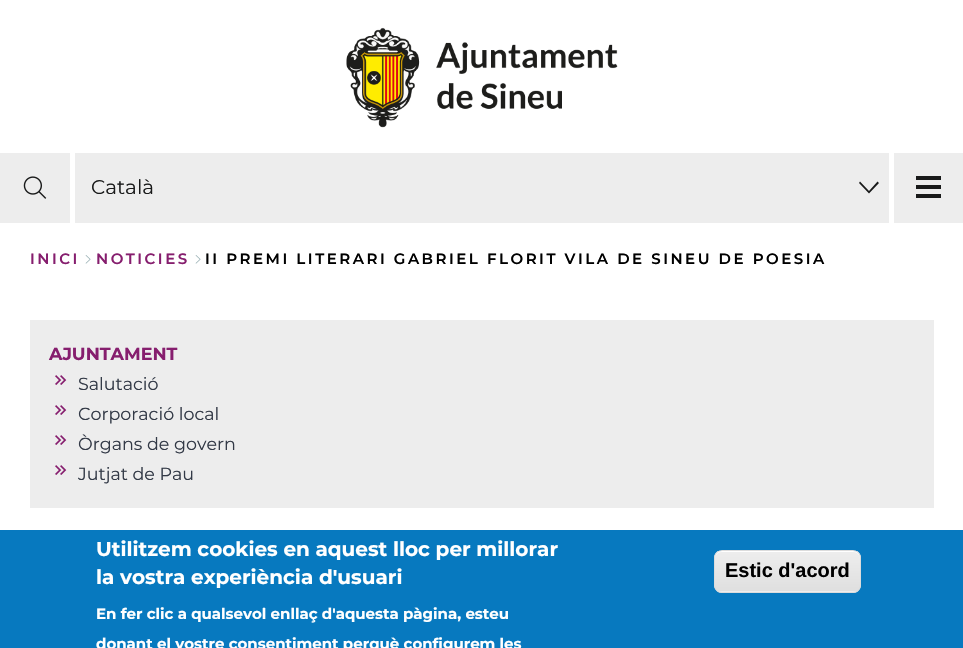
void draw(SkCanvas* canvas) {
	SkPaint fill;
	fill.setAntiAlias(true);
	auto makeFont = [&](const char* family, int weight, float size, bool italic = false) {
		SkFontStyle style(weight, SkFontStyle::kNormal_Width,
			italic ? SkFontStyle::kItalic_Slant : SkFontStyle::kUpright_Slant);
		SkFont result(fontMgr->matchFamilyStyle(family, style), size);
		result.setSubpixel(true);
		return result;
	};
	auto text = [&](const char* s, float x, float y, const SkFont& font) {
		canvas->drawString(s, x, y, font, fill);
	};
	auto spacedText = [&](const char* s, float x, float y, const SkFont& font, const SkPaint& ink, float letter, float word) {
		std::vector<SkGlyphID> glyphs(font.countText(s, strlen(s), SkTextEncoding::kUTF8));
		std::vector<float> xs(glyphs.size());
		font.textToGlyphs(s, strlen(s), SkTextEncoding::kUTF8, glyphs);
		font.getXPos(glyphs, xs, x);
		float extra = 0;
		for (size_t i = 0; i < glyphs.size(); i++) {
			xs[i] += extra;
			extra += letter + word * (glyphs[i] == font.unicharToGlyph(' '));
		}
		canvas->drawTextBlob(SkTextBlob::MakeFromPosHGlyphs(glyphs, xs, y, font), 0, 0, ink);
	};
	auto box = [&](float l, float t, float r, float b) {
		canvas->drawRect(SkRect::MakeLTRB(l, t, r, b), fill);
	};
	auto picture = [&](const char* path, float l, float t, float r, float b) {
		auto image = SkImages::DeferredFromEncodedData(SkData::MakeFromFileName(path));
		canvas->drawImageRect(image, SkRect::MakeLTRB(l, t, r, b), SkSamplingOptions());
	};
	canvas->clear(0xFFFFFFFF);
	picture("image0.png", 346, 27, 618, 128);
	fill.setColor(0xFFEDEDED);
	box(0, 153, 70, 223);
	picture("image1.png", 23, 176, 47, 199);
	box(75, 153, 889, 223);
	fill.setColor(0xFF191A1A);
	canvas->drawPath(SkPathBuilder().moveTo(869, 191).lineTo(877.5f, 181.5f).lineTo(879, 183).lineTo(869, 193.5f).lineTo(859, 183).lineTo(860, 181.5f).close().detach(), fill);
	fill.setColor(0xFFEDEDED);
	box(894, 153, 963, 223);
	fill.setColor(0xFF191A1A);
	box(916, 185, 941, 189);
	box(916, 176, 941, 180);
	box(916, 194, 941, 198);
	picture("image2.png", 85, 255, 91, 264);
	picture("image2.png", 195, 255, 201, 264);
	fill.setColor(0xFFEDEDED);
	box(30, 320, 934, 508);
	picture("image3.png", 55, 375, 67, 385);
	picture("image3.png", 55, 405, 67, 415);
	picture("image3.png", 55, 435, 67, 445);
	picture("image3.png", 55, 465, 67, 475);
	fill.setColor(0xFF0779BF);
	box(0, 530, 963, 648);
	canvas->save();
	canvas->clipPath(SkPathBuilder().moveTo(722, 550).lineTo(853, 550).cubicTo(857.5f, 550, 861, 553.5f, 861, 558).lineTo(861, 585).cubicTo(861, 589.5f, 857.5f, 593, 853, 593).lineTo(722, 593).cubicTo(717.5f, 593, 714, 589.5f, 714, 585).lineTo(714, 558).cubicTo(714, 553.5f, 717.5f, 550, 722, 550).close().detach(), true);
	{
		const SkColor colors[] = {0xFFEDEDED, 0xFFDFDFDF};
		const float stops[] = {0.05f, 1};
		const SkPoint ends[] = {{788, 551}, {788, 591}};
		fill.setShader(SkGradientShader::MakeLinear(ends, colors, stops, 2, SkTileMode::kClamp));
		fill.setAlpha(255);
	}
	box(714, 551, 861, 591);
	{
		const SkColor colors[] = {0xFFEDEDED, 0xFFDFDFDF};
		const float stops[] = {0.05f, 1};
		const SkPoint ends[] = {{788, 591}, {788, 631}};
		fill.setShader(SkGradientShader::MakeLinear(ends, colors, stops, 2, SkTileMode::kClamp));
		fill.setAlpha(255);
	}
	box(714, 591, 861, 593);
	canvas->restore();
	fill.setShader(nullptr);
	fill.setColor(0xFFFFFFFF);
	canvas->drawPath(SkPathBuilder().moveTo(721, 552).lineTo(854, 552).cubicTo(857, 552, 860, 555, 860, 559).lineTo(860, 557).cubicTo(860, 554, 857, 551, 854, 551).lineTo(721, 551).cubicTo(718, 551, 715, 554, 715, 557).lineTo(715, 559).cubicTo(715, 555, 718, 552, 721, 552).close().detach(), fill);
	fill.setStyle(SkPaint::kStroke_Style);
	fill.setStrokeWidth(1);
	fill.setColor(0xFFDCDCDC);
	canvas->drawRoundRect(SkRect::MakeLTRB(714.5f, 550.5f, 860.5f, 592.5f), 7.5f, 7.5f, fill);
	auto font1 = makeFont("Montserrat", 400, 20);
	fill.setStyle(SkPaint::kFill_Style);
	fill.setColor(0xFF191A1A);
	text("Català", 91, 194, font1);
	auto font2 = makeFont("Montserrat", 600, 15);
	fill.setColor(0xFF861E6E);
	spacedText("INICI", 30, 264, font2, fill, 2.5f, 0);
	spacedText("NOTICIES", 96, 264, font2, fill, 2.5f, 0);
	fill.setColor(0xFF000000);
	spacedText("II PREMI LITERARI GABRIEL FLORIT VILA DE SINEU DE POESIA", 205, 264, font2, fill, 2.5f, 0);
	auto font3 = makeFont("Montserrat", 700, 17.5f);
	fill.setColor(0xFF861E6E);
	text("AJUNTAMENT", 49, 360, font3);
	auto font4 = makeFont("Montserrat", 400, 17.5f);
	fill.setColor(0xFF323946);
	text("Salutació", 78, 390, font4);
	text("Corporació local", 78, 420, font4);
	text("Òrgans de govern", 78, 450, font4);
	text("Jutjat de Pau", 78, 480, font4);
	auto font5 = makeFont("Montserrat", 700, 20);
	fill.setColor(0xFFFFFFFF);
	text("Utilitzem cookies en aquest lloc per millorar", 96, 556, font5);
	text("la vostra experiència d'usuari", 96, 584, font5);
	auto font6 = makeFont("Montserrat", 700, 15);
	text("En fer clic a qualsevol enllaç d'aquesta pàgina, esteu", 96, 619, font6);
	text("donant el vostre consentiment perquè configurem les", 96, 649, font6);
	auto font7 = makeFont("Liberation Sans", 700, 20);
	fill.setColor(0xFF000000);
	text("Estic d'acord", 725, 577, font7);
}
